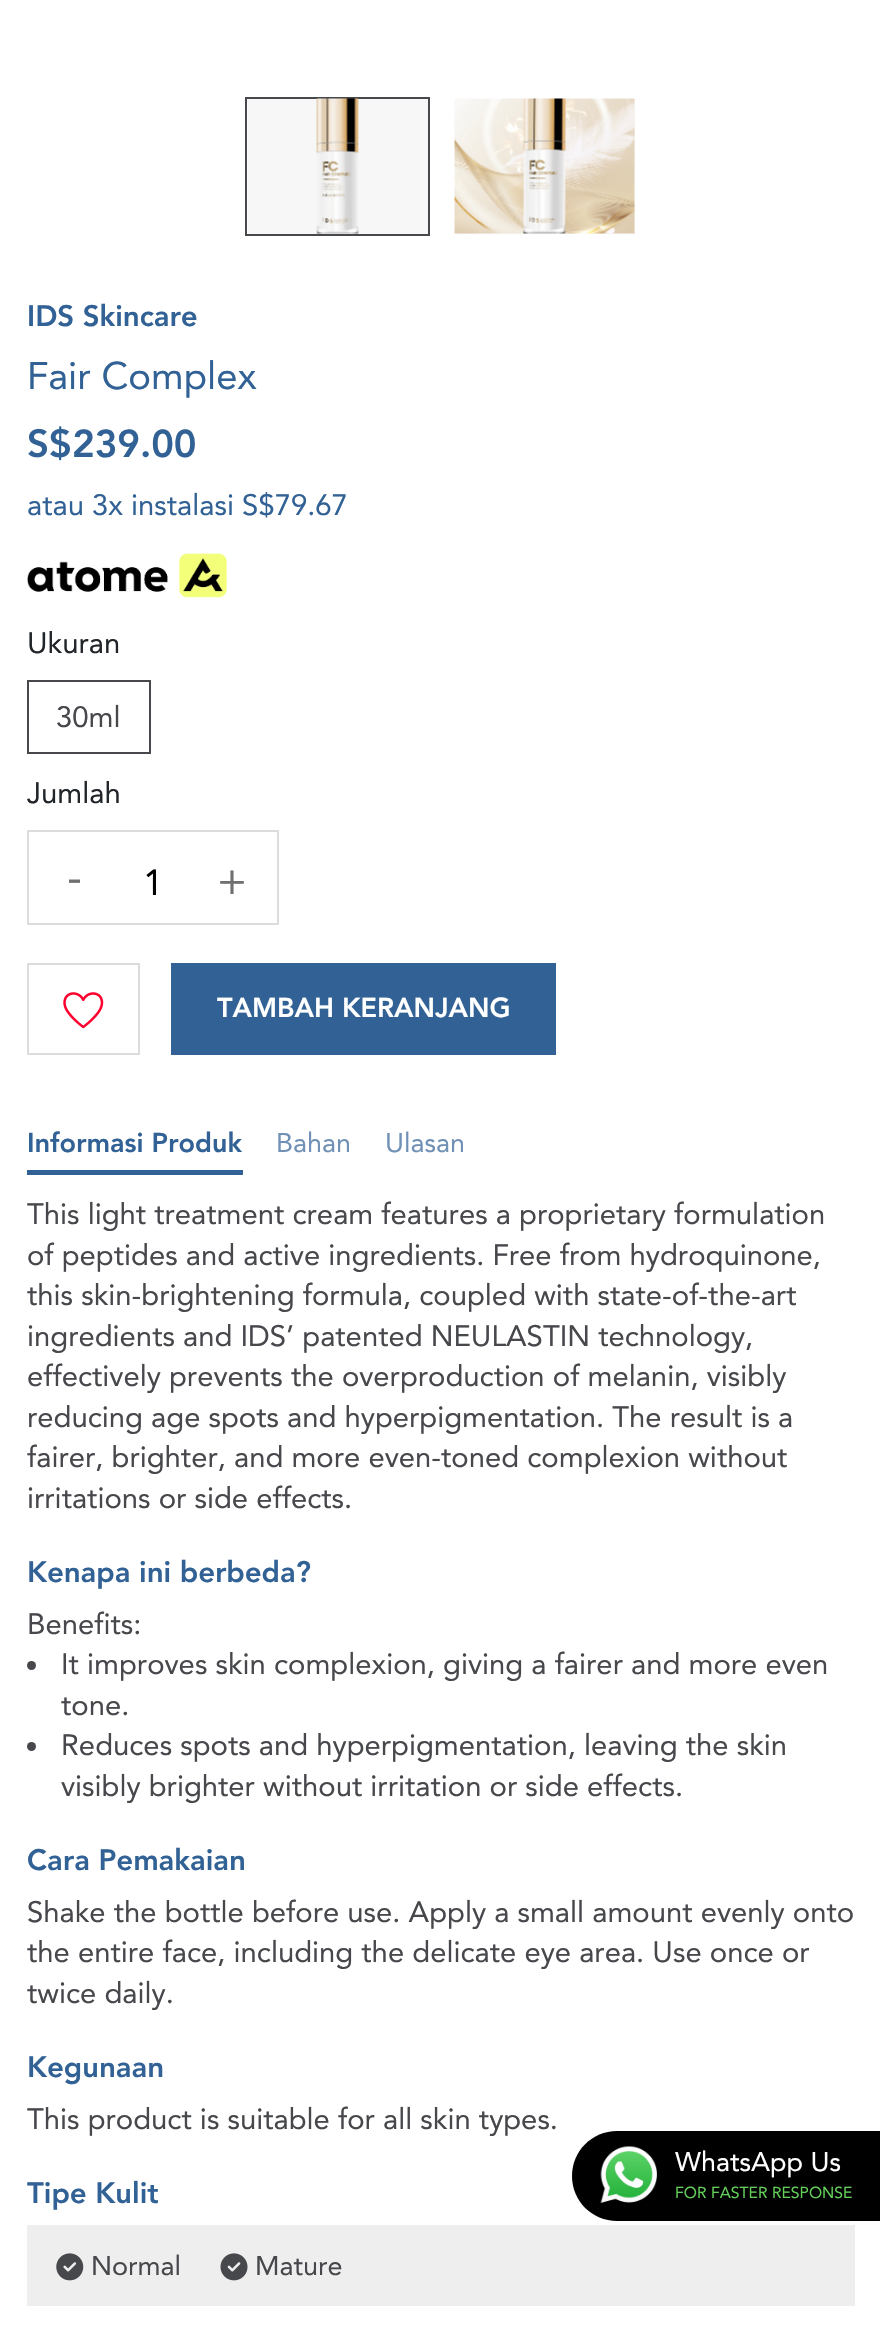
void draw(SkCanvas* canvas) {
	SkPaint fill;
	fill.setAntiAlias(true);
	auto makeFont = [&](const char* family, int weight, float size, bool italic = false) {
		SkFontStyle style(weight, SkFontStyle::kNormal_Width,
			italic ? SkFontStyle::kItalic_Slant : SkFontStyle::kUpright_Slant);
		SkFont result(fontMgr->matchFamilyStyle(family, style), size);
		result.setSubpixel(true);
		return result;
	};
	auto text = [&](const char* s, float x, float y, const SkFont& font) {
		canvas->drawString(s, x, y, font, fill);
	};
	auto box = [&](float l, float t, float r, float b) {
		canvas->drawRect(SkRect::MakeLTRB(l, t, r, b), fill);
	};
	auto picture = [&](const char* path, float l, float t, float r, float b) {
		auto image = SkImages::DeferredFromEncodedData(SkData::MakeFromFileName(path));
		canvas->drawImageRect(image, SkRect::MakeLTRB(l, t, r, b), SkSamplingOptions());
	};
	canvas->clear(0xFFFFFFFF);
	fill.setStyle(SkPaint::kStroke_Style);
	fill.setStrokeWidth(2);
	fill.setColor(0xFF47484C);
	canvas->drawRect(SkRect::MakeLTRB(246, 98, 429, 235), fill);
	fill.setStyle(SkPaint::kFill_Style);
	fill.setColor(0xFFF7F7F7);
	box(248, 99, 428, 234);
	picture("image0.png", 316, 98, 359, 234);
	box(455, 99, 635, 234);
	picture("image1.png", 454, 98, 635, 234);
	picture("image2.png", 28, 426, 70, 461);
	picture("image3.png", 27, 553, 228, 598);
	fill.setStyle(SkPaint::kStroke_Style);
	fill.setColor(0xFF47484C);
	canvas->drawRect(SkRect::MakeLTRB(28, 681, 150, 753), fill);
	fill.setColor(0xFFDCDCDC);
	canvas->drawRect(SkRect::MakeLTRB(28, 831, 278, 924), fill);
	canvas->drawRect(SkRect::MakeLTRB(28, 964, 139, 1054), fill);
	picture("image4.png", 63, 992, 104, 1029);
	fill.setStyle(SkPaint::kFill_Style);
	fill.setColor(0xFF326295);
	box(171, 963, 556, 1055);
	box(27, 1170, 243, 1175);
	fill.setColor(0xFF47484C);
	canvas->drawCircle(31.5f, 1665.5f, 4.5f, fill);
	canvas->drawCircle(31.5f, 1746.5f, 4.5f, fill);
	fill.setColor(0xFFEEEEEE);
	box(27, 2225, 855, 2306);
	picture("image5.png", 56, 2253, 84, 2281);
	picture("image6.png", 220, 2253, 248, 2281);
	fill.setColor(0xFF000000);
	canvas->drawPath(SkPathBuilder().moveTo(617, 2131).lineTo(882, 2131).lineTo(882, 2221).lineTo(617, 2221).cubicTo(592, 2221, 572, 2201, 572, 2176).cubicTo(572, 2151, 592, 2131, 617, 2131).close().detach(), fill);
	picture("image7.png", 600, 2146, 657, 2203);
	auto font1 = makeFont("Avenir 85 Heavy", 900, 29.25f);
	fill.setColor(0xFF326295);
	text("IDS Skincare", 27, 326, font1);
	auto font2 = makeFont("Avenir", 400, 38.25f);
	text("Fair Complex", 27, 389, font2);
	auto font3 = makeFont("Avenir 85 Heavy", 900, 38.25f);
	text("239.00", 72, 457, font3);
	auto font4 = makeFont("Avenir", 400, 29.25f);
	text("atau 3x instalasi S$79.67", 27, 515, font4);
	fill.setColor(0xFF212529);
	text("Ukuran", 27, 653, font4);
	fill.setColor(0xFF47484C);
	text("30ml", 56, 727, font4);
	fill.setColor(0xFF212529);
	text("Jumlah", 27, 803, font4);
	auto font5 = makeFont("Avenir", 400, 45);
	fill.setColor(0xFF707070);
	text("-", 67, 892, font5);
	auto font6 = makeFont("Avenir", 400, 36);
	fill.setColor(0xFF000000);
	text("1", 143, 895, font6);
	fill.setColor(0xFF707070);
	text("+", 217, 896, font5);
	auto font7 = makeFont("Avenir 85 Heavy", 900, 27);
	fill.setColor(0xFFFFFFFF);
	text("TAMBAH KERANJANG", 217, 1017, font7);
	fill.setColor(0xFF326295);
	text("Informasi Produk", 27, 1152, font7);
	auto font8 = makeFont("Avenir", 400, 27);
	fill.setColor(0xFF7091B5);
	text("Bahan", 276, 1152, font8);
	text("Ulasan", 385, 1152, font8);
	fill.setColor(0xFF47484C);
	text("This light treatment cream features a proprietary formulation", 27, 1224, font4);
	text("of peptides and active ingredients. Free from hydroquinone,", 27, 1265, font4);
	text("this skin-brightening formula, coupled with state-of-the-art", 27, 1305, font4);
	text("ingredients and IDS’ patented NEULASTIN technology,", 27, 1346, font4);
	text("effectively prevents the overproduction of melanin, visibly", 27, 1386, font4);
	text("reducing age spots and hyperpigmentation. The result is a", 27, 1427, font4);
	text("fairer, brighter, and more even-toned complexion without", 27, 1467, font4);
	text("irritations or side effects.", 27, 1508, font4);
	fill.setColor(0xFF326295);
	text("Kenapa ini berbeda?", 27, 1582, font1);
	fill.setColor(0xFF47484C);
	text("Benefits:", 27, 1634, font4);
	text("It improves skin complexion, giving a fairer and more even", 61, 1674, font4);
	text("tone.", 61, 1715, font4);
	text("Reduces spots and hyperpigmentation, leaving the skin", 61, 1755, font4);
	text("visibly brighter without irritation or side effects.", 61, 1796, font4);
	fill.setColor(0xFF326295);
	text("Cara Pemakaian", 27, 1870, font1);
	fill.setColor(0xFF47484C);
	text("Shake the bottle before use. Apply a small amount evenly onto", 27, 1922, font4);
	text("the entire face, including the delicate eye area. Use once or", 27, 1962, font4);
	text("twice daily.", 27, 2003, font4);
	fill.setColor(0xFF326295);
	text("Kegunaan", 27, 2077, font1);
	fill.setColor(0xFF47484C);
	text("This product is suitable for all skin types.", 27, 2129, font4);
	fill.setColor(0xFF326295);
	text("Tipe Kulit", 27, 2203, font1);
	fill.setColor(0xFF47484C);
	text("Normal", 91, 2275, font8);
	text("Mature", 255, 2275, font8);
	fill.setColor(0xFFFFFFFF);
	text("WhatsApp Us", 675, 2171, font8);
	auto font9 = makeFont("Avenir", 400, 15.75f);
	fill.setColor(0xFF63CF59);
	text("FOR FASTER RESPONSE", 675, 2198, font9);
}
